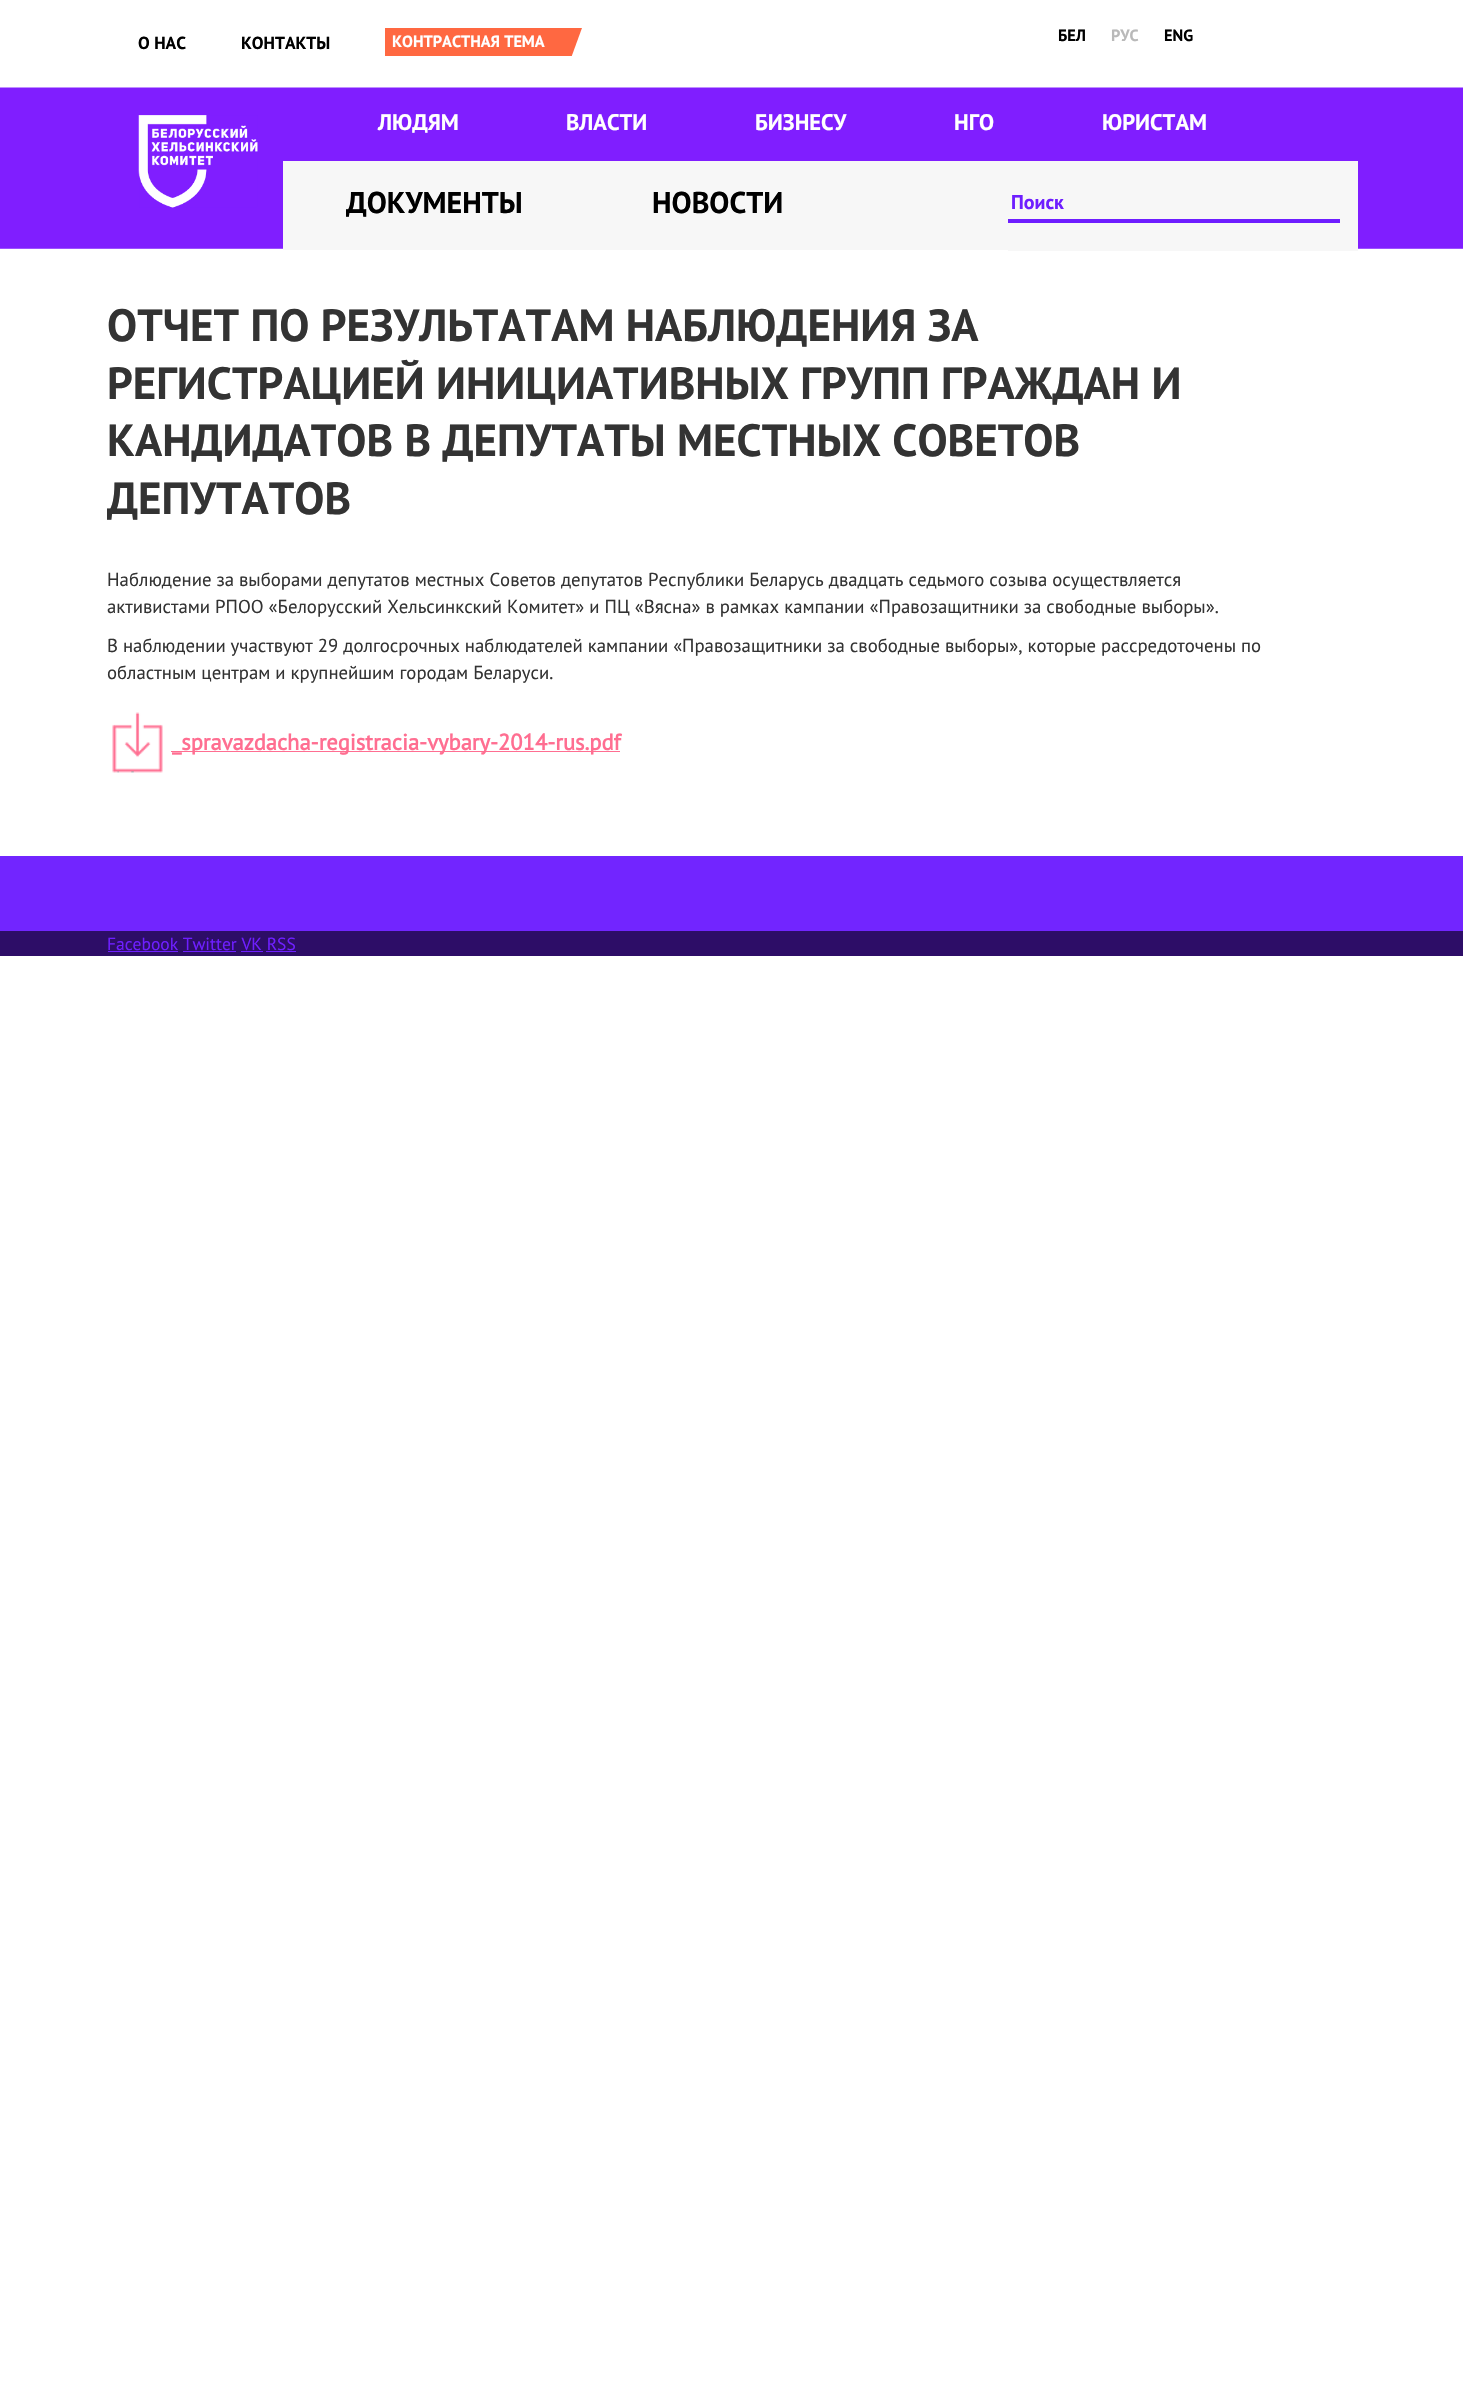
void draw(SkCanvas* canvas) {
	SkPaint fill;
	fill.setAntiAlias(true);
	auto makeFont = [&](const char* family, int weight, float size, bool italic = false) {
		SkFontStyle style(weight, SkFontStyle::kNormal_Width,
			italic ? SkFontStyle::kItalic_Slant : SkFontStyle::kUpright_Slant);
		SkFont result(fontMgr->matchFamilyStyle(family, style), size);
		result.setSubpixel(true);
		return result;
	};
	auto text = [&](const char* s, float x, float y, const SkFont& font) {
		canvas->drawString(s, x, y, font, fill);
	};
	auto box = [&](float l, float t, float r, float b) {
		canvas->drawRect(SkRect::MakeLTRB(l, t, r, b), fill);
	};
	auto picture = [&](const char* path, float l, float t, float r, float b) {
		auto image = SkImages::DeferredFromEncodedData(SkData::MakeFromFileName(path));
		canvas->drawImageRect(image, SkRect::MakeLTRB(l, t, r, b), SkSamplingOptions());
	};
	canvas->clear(0xFFFFFFFF);
	fill.setColor(0xFF801EFF);
	box(0, 87, 1463, 249);
	picture("image0.png", 0, 0, 1463, 249);
	fill.setColor(0xFFFF6841);
	box(385, 28, 582, 56);
	canvas->save();
	canvas->clipRect(SkRect::MakeLTRB(385, 28, 583, 56));
	fill.setColor(0xFFFFFFFF);
	canvas->drawPath(SkPathBuilder().moveTo(598, -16).lineTo(610, -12).lineTo(503, 282).lineTo(491, 278).close().detach(), fill);
	canvas->restore();
	picture("image1.png", 138, 115, 258, 208);
	fill.setColor(0xFFF7F7F7);
	box(283, 161, 1008, 250);
	box(1008, 161, 1358, 251);
	fill.setColor(0xFF6E1EFF);
	box(1008, 219, 1340, 223);
	picture("image2.png", 112, 712, 163, 773);
	fill.setColor(0xFFFF6E91);
	box(171, 751, 620, 752);
	fill.setColor(0xFF2D0D67);
	box(0, 931, 1463, 956);
	fill.setColor(0xFF7225FF);
	box(0, 856, 1463, 931);
	fill.setColor(0xFF6E1EFF);
	box(108, 951, 178, 952);
	box(183, 951, 236, 952);
	box(241, 951, 263, 952);
	box(266, 951, 296, 952);
	auto font1 = makeFont("PT Sans", 700, 17.5f);
	fill.setColor(0xFF000000);
	text("О НАС", 138, 49, font1);
	text("КОНТАКТЫ", 241, 49, font1);
	auto font2 = makeFont("PT Sans", 700, 16.25f);
	fill.setColor(0xFFFFFFFF);
	text("КОНТРАСТНАЯ ТЕМА", 392, 47, font2);
	fill.setColor(0xFF000000);
	text("БЕЛ", 1058, 41, font2);
	fill.setColor(0xFFB9B9B9);
	text("РУС", 1111, 41, font2);
	fill.setColor(0xFF000000);
	text("ENG", 1164, 41, font2);
	auto font3 = makeFont("PT Sans", 700, 22.5f);
	fill.setColor(0xFFFFFFFF);
	text("ЛЮДЯМ", 378, 130, font3);
	text("ВЛАСТИ", 566, 130, font3);
	text("БИЗНЕСУ", 755, 130, font3);
	text("НГО", 954, 130, font3);
	text("ЮРИСТАМ", 1102, 130, font3);
	auto font4 = makeFont("PT Sans", 700, 30);
	fill.setColor(0xFF000000);
	text("ДОКУМЕНТЫ", 346, 213, font4);
	text("НОВОСТИ", 652, 213, font4);
	auto font5 = makeFont("PT Sans", 700, 20);
	fill.setColor(0xFF6E1EFF);
	text("Поиск", 1011, 209, font5);
	auto font6 = makeFont("PT Sans", 700, 45);
	fill.setColor(0xFF333333);
	text("ОТЧЕТ ПО РЕЗУЛЬТАТАМ НАБЛЮДЕНИЯ ЗА", 107, 341, font6);
	text("РЕГИСТРАЦИЕЙ ИНИЦИАТИВНЫХ ГРУПП ГРАЖДАН И", 107, 399, font6);
	text("КАНДИДАТОВ В ДЕПУТАТЫ МЕСТНЫХ СОВЕТОВ", 107, 456, font6);
	text("ДЕПУТАТОВ", 107, 514, font6);
	auto font7 = makeFont("PT Sans", 400, 18.75f);
	text("Наблюдение за выборами депутатов местных Советов депутатов Республики Беларусь двадцать седьмого созыва осуществляется", 107, 586, font7);
	text("активистами РПОО «Белорусский Хельсинкский Комитет» и ПЦ «Вясна» в рамках кампании «Правозащитники за свободные выборы».", 107, 613, font7);
	text("В наблюдении участвуют 29 долгосрочных наблюдателей кампании «Правозащитники за свободные выборы», которые рассредоточены по", 107, 652, font7);
	text("областным центрам и крупнейшим городам Беларуси.", 107, 679, font7);
	auto font8 = makeFont("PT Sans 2", 700, 22.5f);
	fill.setColor(0xFFFF6E91);
	text("_spravazdacha-registracia-vybary-2014-rus.pdf", 172, 750, font8);
	auto font9 = makeFont("PT Sans", 400, 17.5f);
	fill.setColor(0xFF6E1EFF);
	text("Facebook Twitter VK RSS", 107, 950, font9);
}
